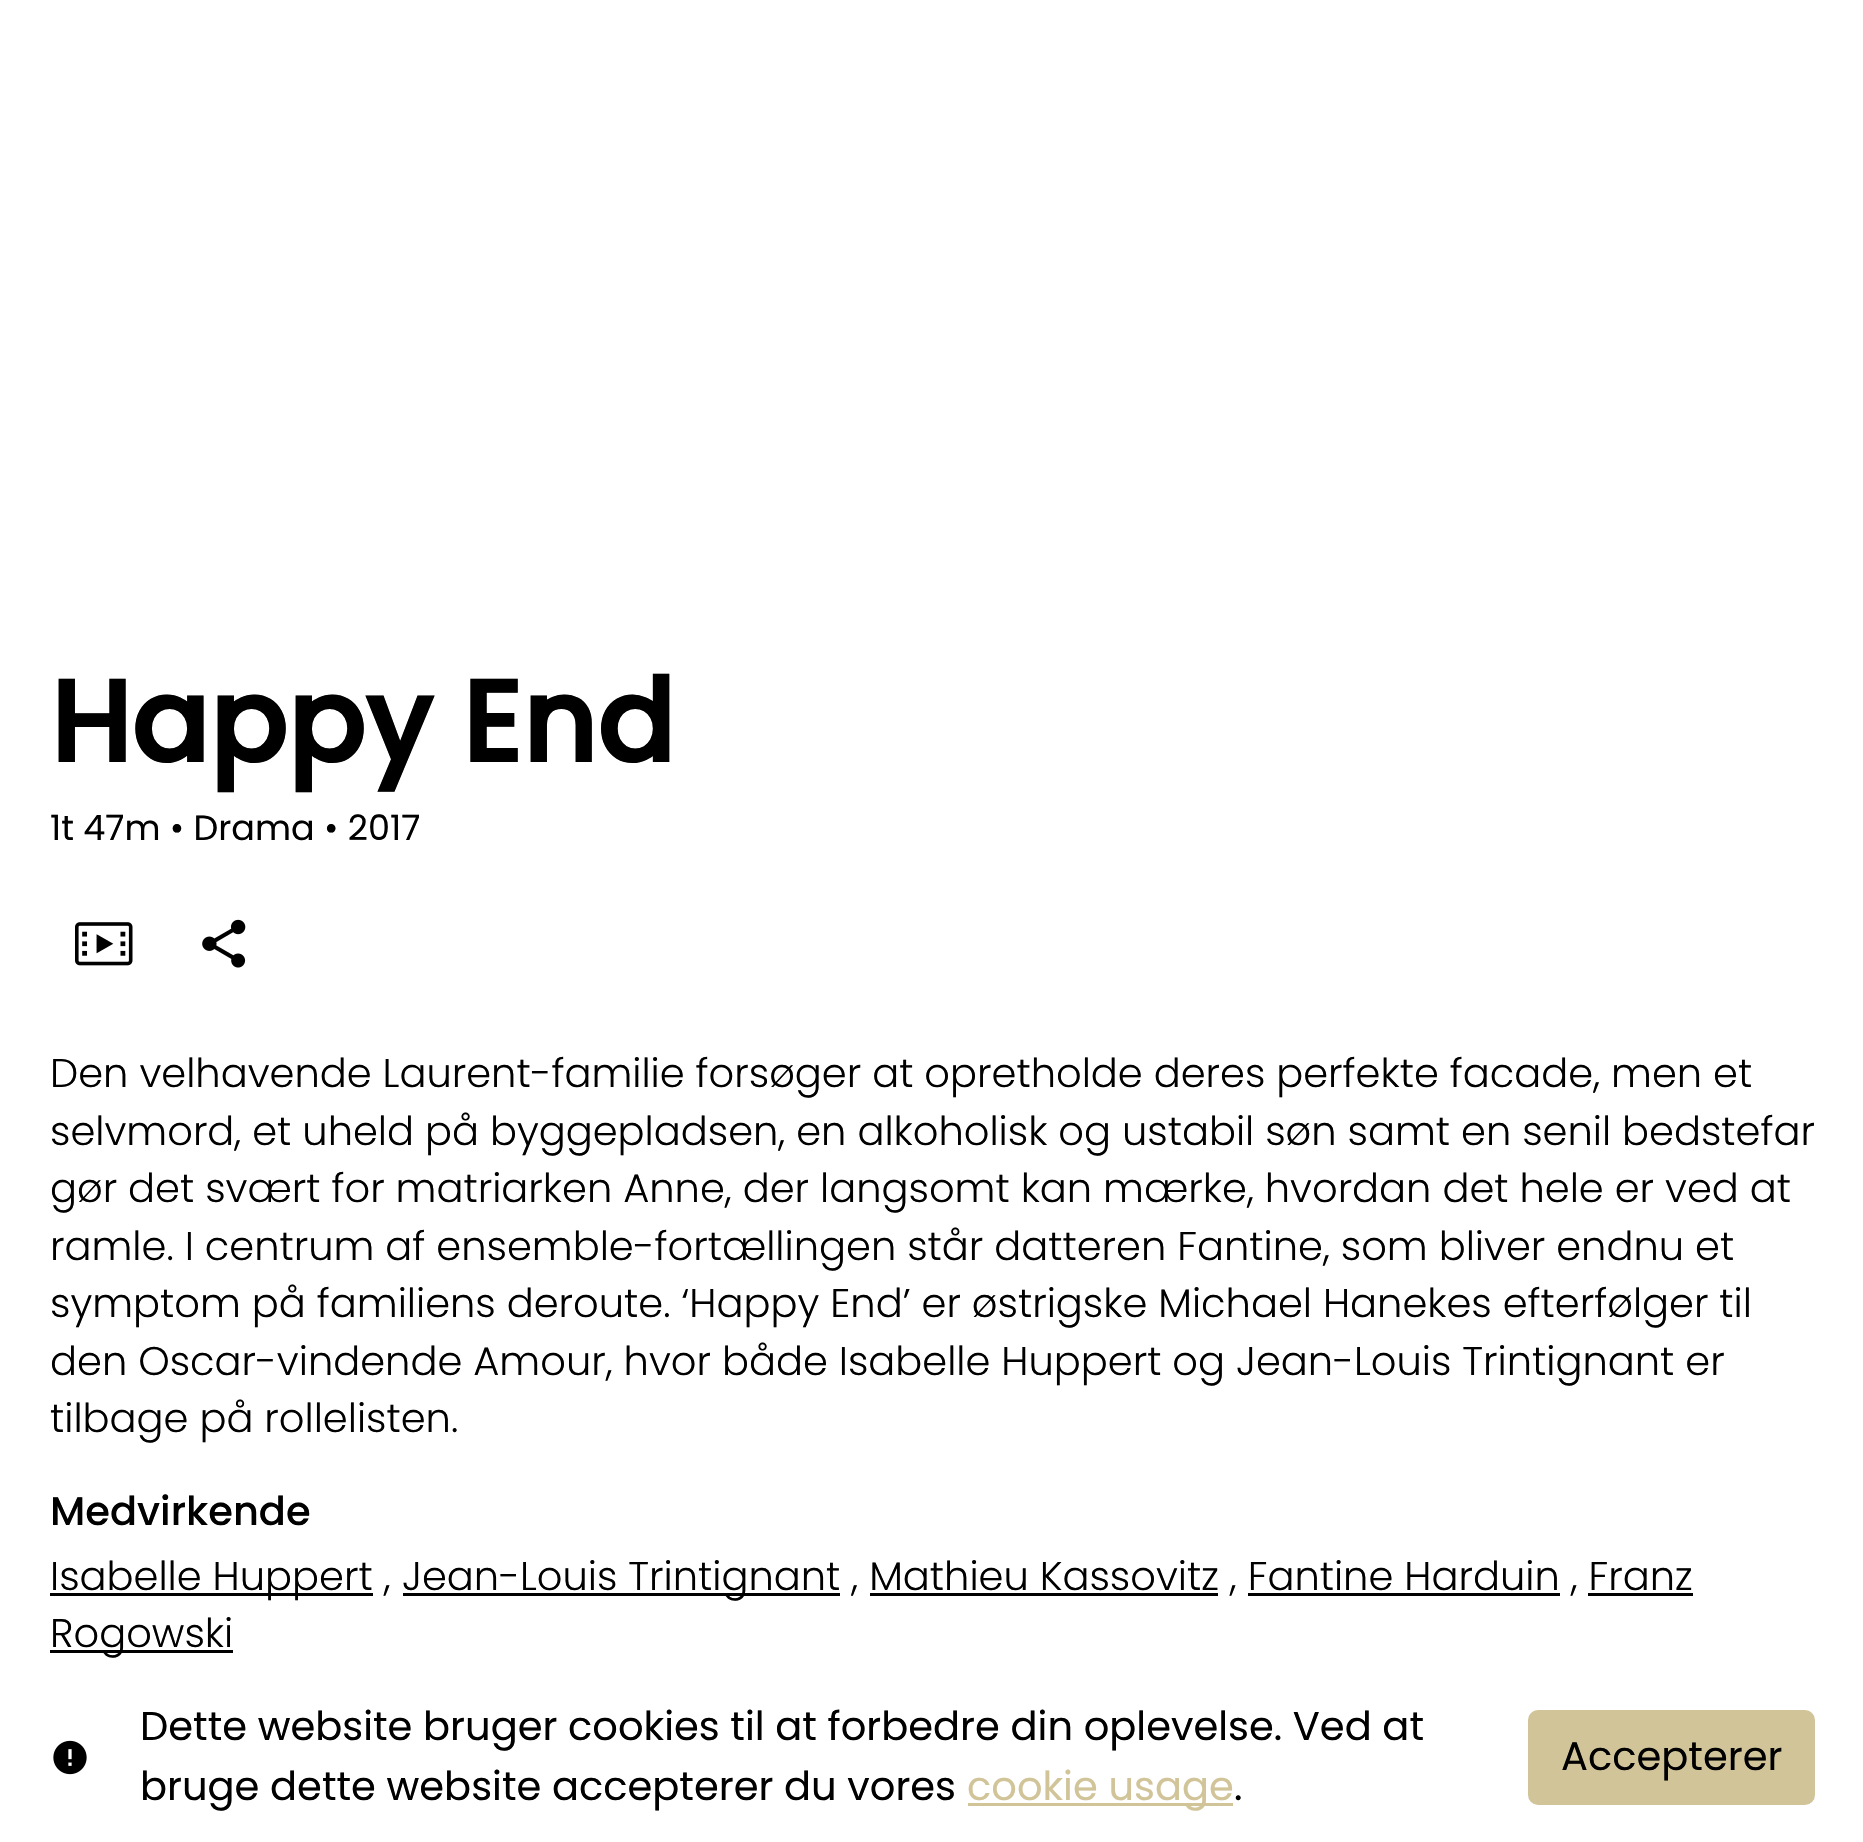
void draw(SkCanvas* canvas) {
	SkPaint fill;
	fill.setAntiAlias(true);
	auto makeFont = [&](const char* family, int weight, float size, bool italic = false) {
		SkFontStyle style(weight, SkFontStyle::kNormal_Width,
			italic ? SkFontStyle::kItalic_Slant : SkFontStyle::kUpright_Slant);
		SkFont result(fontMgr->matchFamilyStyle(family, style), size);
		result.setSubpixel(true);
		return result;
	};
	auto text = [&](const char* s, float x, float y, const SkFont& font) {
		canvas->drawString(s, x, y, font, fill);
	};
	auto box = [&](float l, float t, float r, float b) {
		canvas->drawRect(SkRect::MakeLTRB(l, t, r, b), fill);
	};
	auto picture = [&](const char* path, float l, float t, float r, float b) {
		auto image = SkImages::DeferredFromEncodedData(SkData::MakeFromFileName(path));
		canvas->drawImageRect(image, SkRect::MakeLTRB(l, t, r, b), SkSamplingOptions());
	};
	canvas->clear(0xFFFFFFFF);
	picture("image0.png", 75, 922, 133, 966);
	picture("image1.png", 202, 919, 246, 968);
	fill.setColor(0xFF000000);
	box(50, 1593, 373, 1596);
	box(403, 1593, 840, 1596);
	box(870, 1593, 1218, 1596);
	box(1248, 1593, 1560, 1596);
	box(1588, 1593, 1693, 1596);
	box(50, 1650, 233, 1653);
	picture("image2.png", 53, 1740, 87, 1775);
	fill.setColor(0xFFD1C499);
	box(968, 1803, 1233, 1806);
	canvas->drawRoundRect(SkRect::MakeLTRB(1529.5f, 1711.5f, 1813.5f, 1803.5f), 8.5f, 8.5f, fill);
	fill.setStyle(SkPaint::kStroke_Style);
	fill.setStrokeWidth(3);
	canvas->drawRoundRect(SkRect::MakeLTRB(1529.5f, 1711.5f, 1813.5f, 1803.5f), 8.5f, 8.5f, fill);
	auto font1 = makeFont("Poppins", 700, 115);
	fill.setStyle(SkPaint::kFill_Style);
	fill.setColor(0xFF000000);
	text("Happy End", 50, 762, font1);
	auto font2 = makeFont("Poppins", 400, 35);
	text("1t 47m • Drama • 2017", 50, 840, font2);
	auto font3 = makeFont("Poppins", 300, 40);
	text("Den velhavende Laurent-familie forsøger at opretholde deres perfekte facade, men et", 50, 1087, font3);
	text("selvmord, et uheld på byggepladsen, en alkoholisk og ustabil søn samt en senil bedstefar", 50, 1145, font3);
	text("gør det svært for matriarken Anne, der langsomt kan mærke, hvordan det hele er ved at", 50, 1202, font3);
	text("ramle. I centrum af ensemble-fortællingen står datteren Fantine, som bliver endnu et", 50, 1260, font3);
	text("symptom på familiens deroute. ‘Happy End’ er østrigske Michael Hanekes efterfølger til", 50, 1317, font3);
	text("den Oscar-vindende Amour, hvor både Isabelle Huppert og Jean-Louis Trintignant er", 50, 1375, font3);
	text("tilbage på rollelisten.", 50, 1432, font3);
	auto font4 = makeFont("Poppins", 500, 40);
	text("Medvirkende", 50, 1525, font4);
	text("Isabelle Huppert ,", 50, 1590, font3);
	text("Jean-Louis Trintignant , Mathieu Kassovitz , Fantine Harduin , Franz", 402, 1590, font3);
	text("Rogowski", 50, 1647, font3);
	auto font5 = makeFont("Poppins", 400, 40);
	text("Dette website bruger cookies til at forbedre din oplevelse. Ved at", 140, 1740, font5);
	text("bruge dette website accepterer du vores", 140, 1800, font5);
	fill.setColor(0xFFD1C499);
	text("cookie usage", 967, 1800, font5);
	fill.setColor(0xFF000000);
	text(".", 1234, 1800, font5);
	text("Accepterer", 1561, 1770, font5);
}
